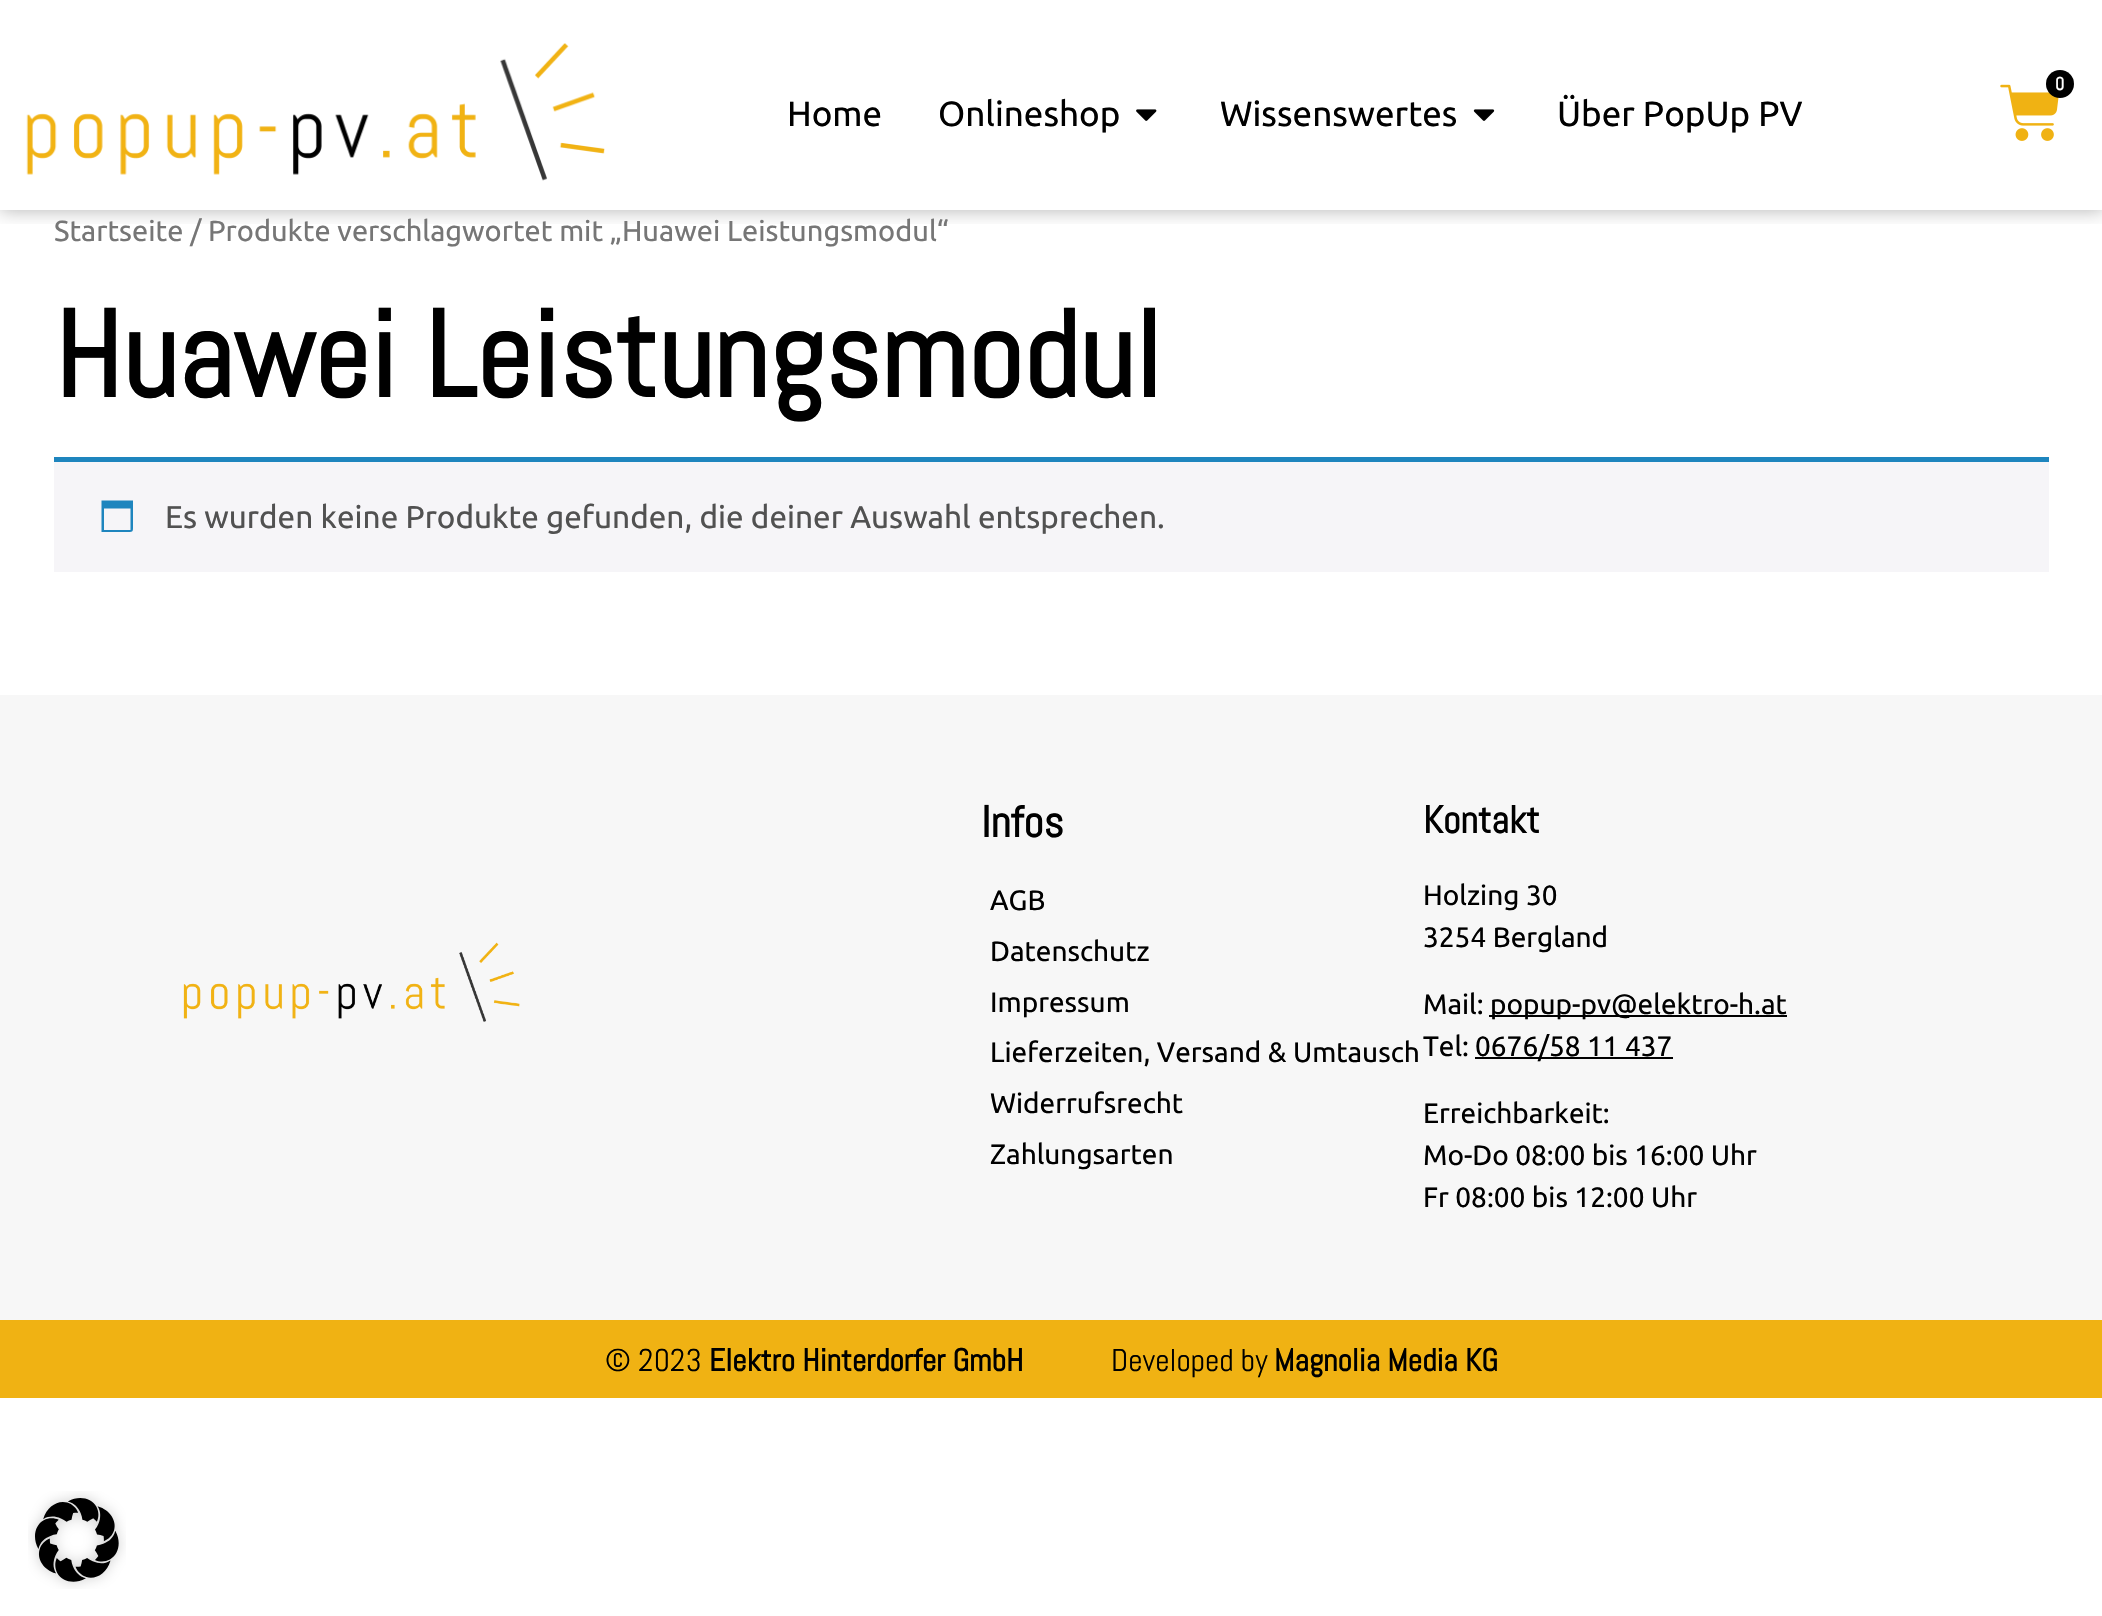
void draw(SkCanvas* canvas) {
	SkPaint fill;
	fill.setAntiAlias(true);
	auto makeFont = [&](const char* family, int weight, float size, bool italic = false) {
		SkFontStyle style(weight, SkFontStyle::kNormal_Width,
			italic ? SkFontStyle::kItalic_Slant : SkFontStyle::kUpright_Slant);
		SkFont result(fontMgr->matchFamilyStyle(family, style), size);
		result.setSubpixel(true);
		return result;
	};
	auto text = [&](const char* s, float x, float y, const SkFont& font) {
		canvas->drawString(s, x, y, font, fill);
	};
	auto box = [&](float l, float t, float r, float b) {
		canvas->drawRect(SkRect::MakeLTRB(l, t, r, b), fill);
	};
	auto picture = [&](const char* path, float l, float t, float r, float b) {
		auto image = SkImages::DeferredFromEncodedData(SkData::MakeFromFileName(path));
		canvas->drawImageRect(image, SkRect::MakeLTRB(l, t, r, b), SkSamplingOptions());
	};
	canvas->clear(0xFFFFFFFF);
	canvas->save();
	canvas->clipRect(SkRect::MakeLTRB(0, 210, 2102, 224));
	fill.setColor(0x4D000000);
	fill.setMaskFilter(SkMaskFilter::MakeBlur(kNormal_SkBlurStyle, 9));
	canvas->drawRect(SkRect::MakeLTRB(0, 0, 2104, 210), fill);
	fill.setMaskFilter(nullptr);
	canvas->restore();
	picture("image0.png", 26, 43, 605, 181);
	picture("image1.png", 2000, 84, 2059, 141);
	fill.setColor(0xFF000000);
	canvas->drawCircle(2060, 84, 14, fill);
	picture("image2.png", 1136, 109, 1157, 121);
	picture("image3.png", 1473, 109, 1495, 121);
	fill.setColor(0xFFF6F5F8);
	box(54, 462, 2049, 572);
	fill.setColor(0xFF1E85BE);
	box(54, 457, 2049, 462);
	canvas->drawPath(SkPathBuilder().moveTo(130.5f, 508.5f).lineTo(104, 508.5f).lineTo(104, 530).lineTo(130.5f, 530).close().moveTo(133, 500.5f).lineTo(133, 525).cubicTo(133, 532.5f, 133.5f, 532, 126, 532).lineTo(101.5f, 532).lineTo(101.5f, 500.5f).close().detach(), fill);
	fill.setColor(0xFFF7F7F7);
	box(0, 695, 2102, 1320);
	picture("image4.png", 183, 942, 520, 1022);
	fill.setColor(0xFF000000);
	box(1489, 1015, 1787, 1017);
	box(1475, 1057, 1673, 1059);
	fill.setColor(0xFFF0B213);
	box(0, 1320, 2102, 1398);
	picture("image5.png", 28, 1491, 126, 1589);
	auto font1 = makeFont("Abel", 700, 18);
	fill.setColor(0xFFFFFFFF);
	text("0", 2055, 90, font1);
	auto font2 = makeFont("Ubuntu", 400, 35);
	fill.setColor(0xFF000000);
	text("Home", 787, 126, font2);
	text("Onlineshop", 938, 126, font2);
	text("Wissenswertes", 1220, 126, font2);
	text("Über PopUp PV", 1557, 126, font2);
	auto font3 = makeFont("Ubuntu", 400, 29);
	fill.setColor(0xFF767676);
	text("Startseite / Produkte verschlagwortet mit „Huawei Leistungsmodul“", 54, 241, font3);
	auto font4 = makeFont("Abel", 700, 122.5f);
	fill.setColor(0xFF000000);
	text("Huawei Leistungsmodul", 54, 397, font4);
	auto font5 = makeFont("Ubuntu", 400, 31.5f);
	fill.setColor(0xFF515151);
	text("Es wurden keine Produkte gefunden, die deiner Auswahl entsprechen.", 165, 528, font5);
	auto font6 = makeFont("Abel", 700, 44);
	fill.setColor(0xFF000000);
	text("Infos", 981, 837, font6);
	auto font7 = makeFont("Ubuntu", 400, 28);
	text("AGB", 990, 910, font7);
	text("Datenschutz", 990, 961, font7);
	text("Impressum", 990, 1012, font7);
	text("Lieferzeiten, Versand & Umtausch", 990, 1062, font7);
	text("Widerrufsrecht", 990, 1113, font7);
	text("Zahlungsarten", 990, 1164, font7);
	auto font8 = makeFont("Abel", 700, 38.5f);
	text("Kontakt", 1423, 833, font8);
	text("Holzing 30", 1423, 905, font7);
	text("3254 Bergland", 1423, 947, font7);
	text("Mail:", 1423, 1014, font7);
	text("popup-pv@elektro-h.at", 1490, 1014, font7);
	text("Tel:", 1423, 1056, font7);
	text("0676/58 11 437", 1475, 1056, font7);
	text("Erreichbarkeit:", 1423, 1123, font7);
	text("Mo-Do 08:00 bis 16:00 Uhr", 1423, 1165, font7);
	text("Fr 08:00 bis 12:00 Uhr", 1423, 1207, font7);
	auto font9 = makeFont("Abel", 400, 31.5f);
	text("© 2023", 605, 1371, font9);
	auto font10 = makeFont("Abel", 700, 31.5f);
	text("Elektro Hinterdorfer GmbH", 709, 1371, font10);
	text("Developed by", 1111, 1371, font9);
	text("Magnolia Media KG", 1274, 1371, font10);
}
